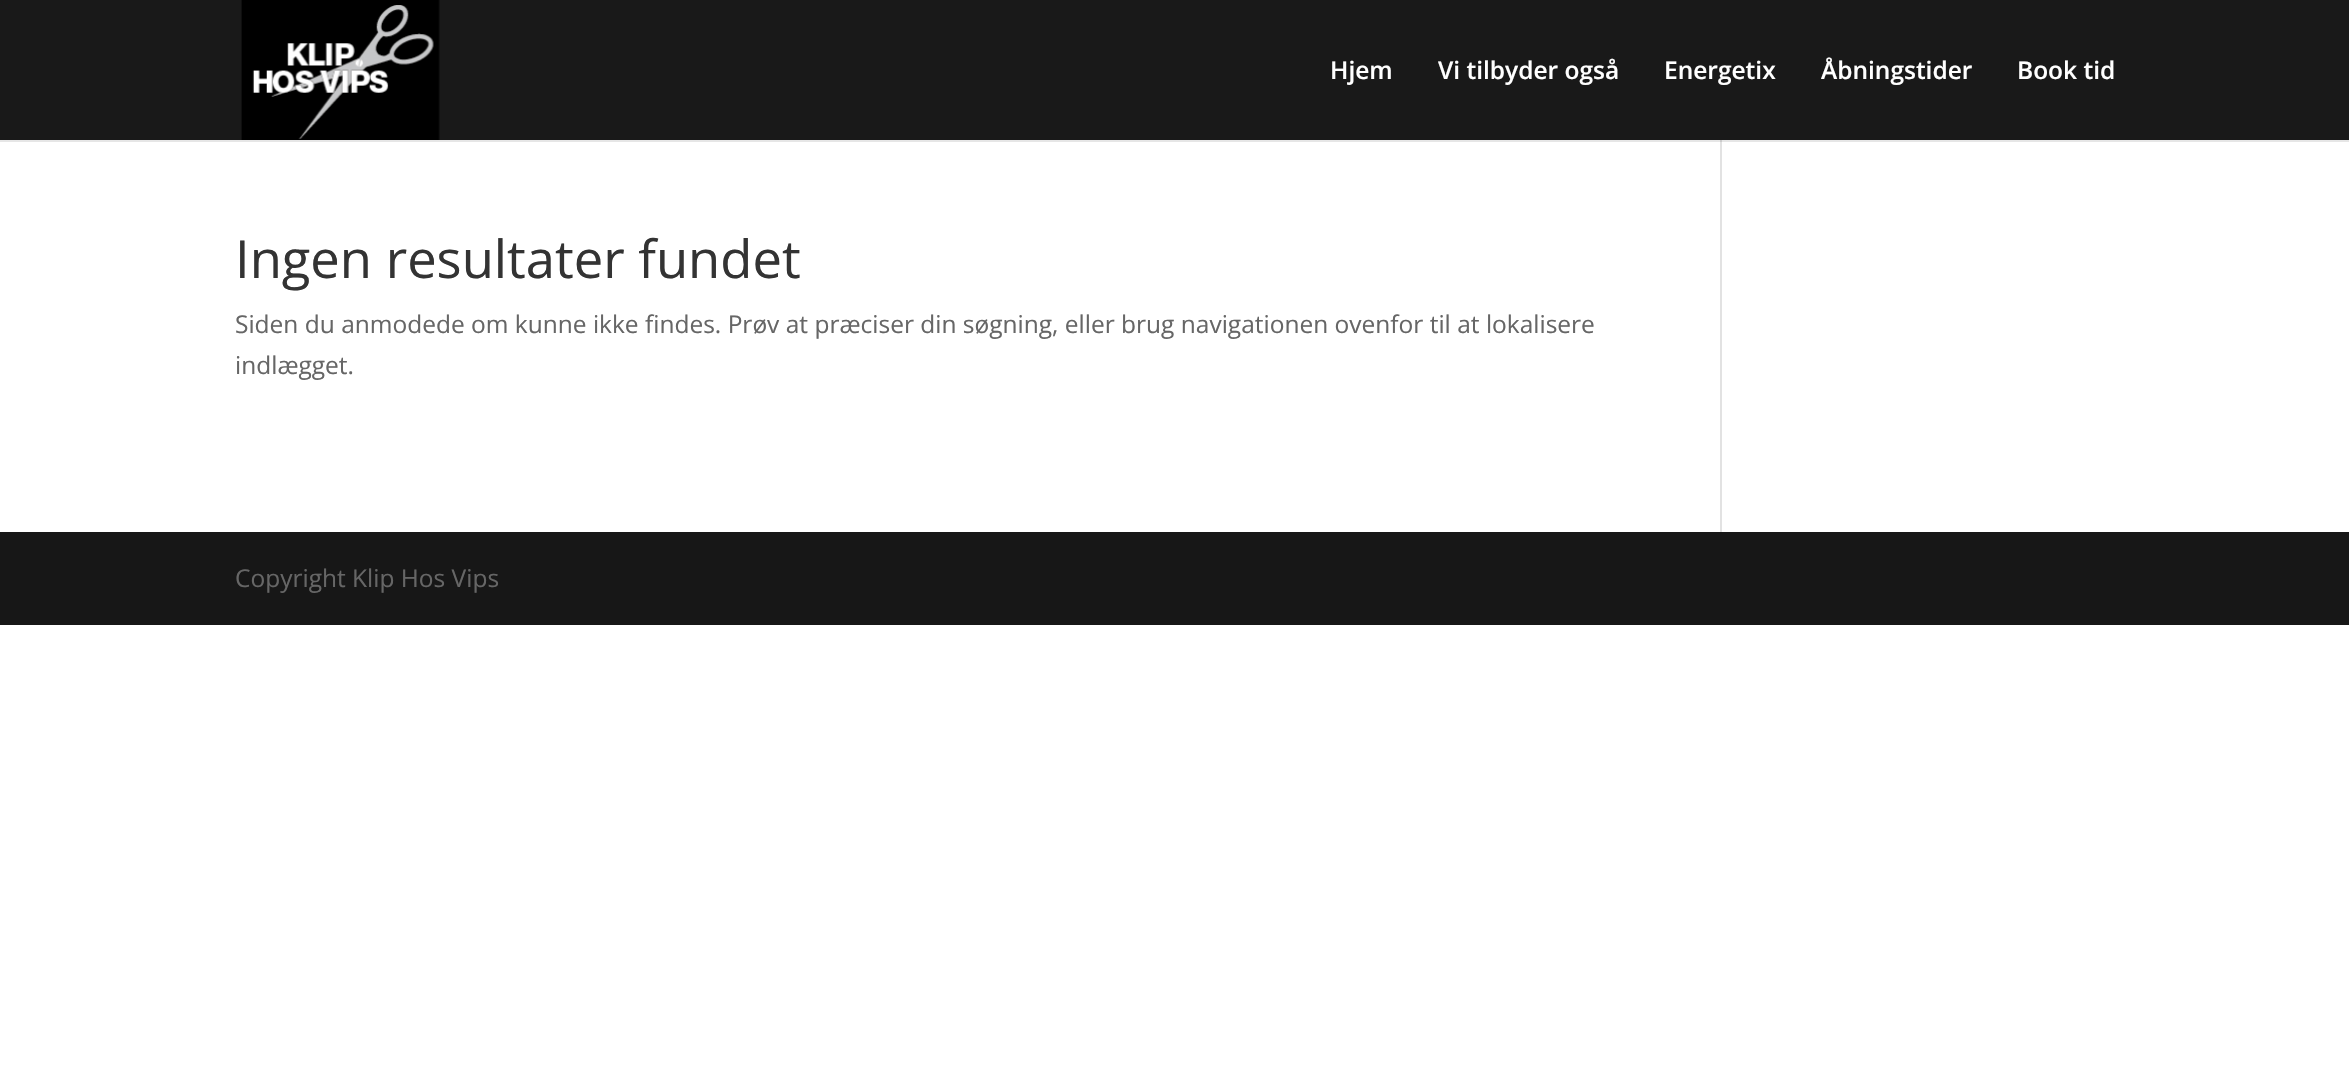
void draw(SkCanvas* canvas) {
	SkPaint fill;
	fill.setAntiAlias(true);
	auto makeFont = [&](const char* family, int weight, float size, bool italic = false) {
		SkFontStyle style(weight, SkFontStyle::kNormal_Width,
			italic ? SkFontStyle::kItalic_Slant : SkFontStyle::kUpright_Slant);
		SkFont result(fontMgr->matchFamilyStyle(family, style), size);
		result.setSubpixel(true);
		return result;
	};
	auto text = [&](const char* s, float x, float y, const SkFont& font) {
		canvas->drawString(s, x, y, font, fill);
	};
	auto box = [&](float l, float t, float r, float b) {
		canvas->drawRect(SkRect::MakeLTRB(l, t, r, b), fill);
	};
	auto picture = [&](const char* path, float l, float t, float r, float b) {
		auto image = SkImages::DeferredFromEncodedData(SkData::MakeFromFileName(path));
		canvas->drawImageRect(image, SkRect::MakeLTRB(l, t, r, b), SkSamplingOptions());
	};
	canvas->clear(0xFFFFFFFF);
	fill.setColor(0xFFE6E6E6);
	box(0, 140, 2349, 142);
	fill.setColor(0xFF191919);
	box(0, 0, 2349, 140);
	picture("image0.png", 241, 0, 440, 140);
	fill.setColor(0xFFE2E2E2);
	box(1720, 142, 1722, 532);
	fill.setColor(0xFFCBCBCB);
	box(1720, 140, 1722, 142);
	fill.setColor(0xFF171717);
	box(0, 532, 2349, 625);
	auto font1 = makeFont("Open Sans", 600, 24.5f);
	fill.setColor(0xFFFFFFFF);
	text("Hjem", 1330, 79, font1);
	text("Vi tilbyder også", 1438, 79, font1);
	text("Energetix", 1664, 79, font1);
	text("Åbningstider", 1821, 79, font1);
	text("Book tid", 2017, 79, font1);
	auto font2 = makeFont("Open Sans", 400, 52.5f);
	fill.setColor(0xFF333333);
	text("Ingen resultater fundet", 235, 278, font2);
	auto font3 = makeFont("Open Sans", 400, 24.5f);
	fill.setColor(0xFF666666);
	text("Siden du anmodede om kunne ikke findes. Prøv at præciser din søgning, eller brug navigationen ovenfor til at lokalisere", 235, 333, font3);
	text("indlægget.", 235, 374, font3);
	text("Copyright Klip Hos Vips", 235, 587, font3);
}
